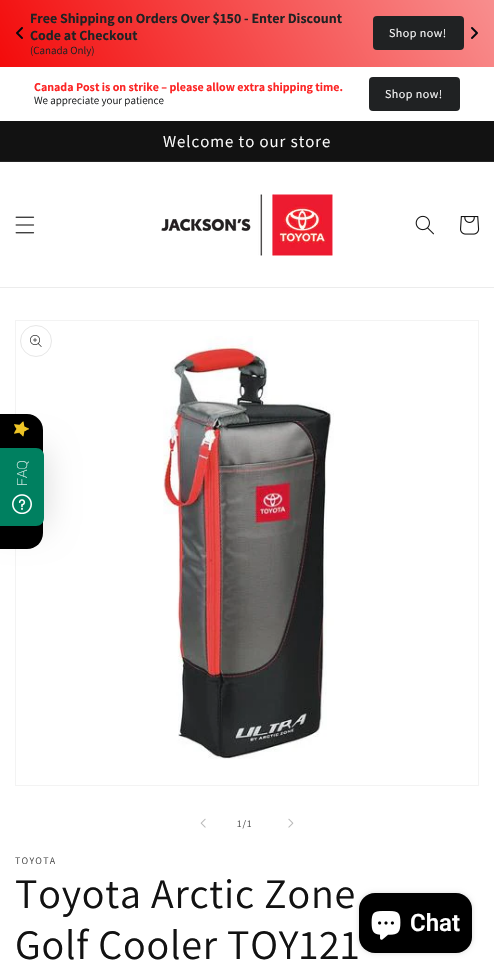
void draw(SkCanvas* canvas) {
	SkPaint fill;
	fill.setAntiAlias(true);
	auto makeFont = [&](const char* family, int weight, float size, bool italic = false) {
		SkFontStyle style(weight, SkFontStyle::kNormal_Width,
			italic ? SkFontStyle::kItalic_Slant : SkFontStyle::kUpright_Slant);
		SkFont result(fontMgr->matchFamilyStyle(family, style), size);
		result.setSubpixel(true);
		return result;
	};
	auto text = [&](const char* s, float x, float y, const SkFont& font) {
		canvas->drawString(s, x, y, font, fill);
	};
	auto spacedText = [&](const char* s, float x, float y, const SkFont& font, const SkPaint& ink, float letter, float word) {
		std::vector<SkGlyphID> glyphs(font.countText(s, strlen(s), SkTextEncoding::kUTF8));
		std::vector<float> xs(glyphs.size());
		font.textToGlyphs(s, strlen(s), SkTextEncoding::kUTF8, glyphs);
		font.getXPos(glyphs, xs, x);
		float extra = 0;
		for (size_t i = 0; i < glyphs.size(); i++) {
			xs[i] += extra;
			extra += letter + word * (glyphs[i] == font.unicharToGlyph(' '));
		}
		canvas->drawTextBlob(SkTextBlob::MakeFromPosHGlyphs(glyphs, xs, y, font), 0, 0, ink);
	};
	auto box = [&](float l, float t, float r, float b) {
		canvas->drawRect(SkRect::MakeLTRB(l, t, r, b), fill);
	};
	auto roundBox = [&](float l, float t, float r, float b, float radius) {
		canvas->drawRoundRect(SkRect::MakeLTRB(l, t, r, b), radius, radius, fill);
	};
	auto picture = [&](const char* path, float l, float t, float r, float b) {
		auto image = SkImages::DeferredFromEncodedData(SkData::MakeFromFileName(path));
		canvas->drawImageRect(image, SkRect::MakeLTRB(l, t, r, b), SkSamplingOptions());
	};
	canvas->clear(0xFFFFFFFF);
	{
		const SkColor colors[] = {0xFFF30B0B, 0xFFF88E8E};
		const float stops[] = {0, 1};
		const SkPoint ends[] = {{44, 146}, {450, -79}};
		fill.setShader(SkGradientShader::MakeLinear(ends, colors, stops, 2, SkTileMode::kClamp));
		fill.setAlpha(255);
	}
	box(0, 0, 494, 67);
	fill.setShader(nullptr);
	fill.setColor(0xFF202223);
	roundBox(373, 16, 464, 50, 4);
	picture("image0.png", 16, 27, 23, 39);
	picture("image1.png", 471, 27, 478, 39);
	roundBox(369, 77, 460, 111, 4);
	fill.setColor(0xFF121212);
	box(0, 121, 494, 161);
	fill.setColor(0xFF252525);
	box(0, 161, 494, 162);
	fill.setColor(0xFFECECEC);
	box(0, 287, 494, 288);
	picture("image2.png", 15, 216, 35, 234);
	picture("image3.png", 161, 194, 333, 256);
	picture("image4.png", 415, 215, 434, 235);
	picture("image5.png", 460, 216, 480, 235);
	fill.setStyle(SkPaint::kStroke_Style);
	fill.setStrokeWidth(1);
	fill.setColor(0xFFF3F3F3);
	canvas->drawRect(SkRect::MakeLTRB(15.5f, 320.5f, 478.5f, 785.5f), fill);
	fill.setStyle(SkPaint::kFill_Style);
	fill.setColor(0xFF000000);
	canvas->drawPath(SkPathBuilder().moveTo(43, 430).lineTo(43, 533).cubicTo(43, 542, 36, 549, 27, 549).lineTo(0, 549).lineTo(0, 414).lineTo(27, 414).cubicTo(36, 414, 43, 421, 43, 430).close().detach(), fill);
	picture("image6.png", 14, 421, 29, 437);
	fill.setColor(0x29000000);
	fill.setMaskFilter(SkMaskFilter::MakeBlur(kNormal_SkBlurStyle, 16));
	canvas->drawRoundRect(SkRect::MakeLTRB(0, 450, 44, 528), 8, 8, fill);
	fill.setMaskFilter(nullptr);
	fill.setColor(0xFF008060);
	canvas->drawPath(SkPathBuilder().moveTo(0, 448).lineTo(36, 448).cubicTo(40.5f, 448, 44, 451.5f, 44, 456).lineTo(44, 518).cubicTo(44, 522.5f, 40.5f, 526, 36, 526).lineTo(0, 526).close().detach(), fill);
	picture("image7.png", 12, 494, 32, 514);
	picture("image8.png", 163, 336, 334, 759);
	fill.setStyle(SkPaint::kStroke_Style);
	fill.setColor(0xFFE7E7E7);
	canvas->drawCircle(36, 341, 15.5f, fill);
	picture("image9.png", 30, 335, 42, 347);
	picture("image10.png", 200, 818, 206, 828);
	picture("image11.png", 288, 818, 294, 828);
	fill.setStyle(SkPaint::kFill_Style);
	fill.setColor(0x26000000);
	fill.setMaskFilter(SkMaskFilter::MakeBlur(kNormal_SkBlurStyle, 2.5f));
	canvas->drawRoundRect(SkRect::MakeLTRB(359, 893, 472, 953), 16, 16, fill);
	fill.setMaskFilter(nullptr);
	fill.setColor(0xFF000000);
	roundBox(359, 893, 472, 953, 16);
	picture("image12.png", 371, 911, 401, 940);
	auto font1 = makeFont("Assistant", 700, 14);
	fill.setColor(0xFF202223);
	text("Free Shipping on Orders Over $150 - Enter Discount", 30, 23, font1);
	text("Code at Checkout", 30, 40, font1);
	auto font2 = makeFont("Assistant", 400, 11);
	text("(Canada Only)", 30, 54, font2);
	auto font3 = makeFont("Assistant", 400, 12);
	fill.setColor(0xFFFFFFFF);
	spacedText("Shop now!", 389, 37, font3, fill, 0.5f, 0);
	auto font4 = makeFont("Assistant", 700, 12);
	fill.setColor(0xFFFC2525);
	text("Canada Post is on strike – please allow extra shipping time.", 34, 91, font4);
	fill.setColor(0xFF202223);
	text("We appreciate your patience", 34, 104, font2);
	fill.setColor(0xFFFFFFFF);
	spacedText("Shop now!", 385, 98, font3, fill, 0.5f, 0);
	auto font5 = makeFont("Assistant", 400, 16.75f);
	spacedText("Welcome to our store", 163, 147, font5, fill, 1, 0);
	auto font6 = makeFont("Roboto", 100, 14);
	canvas->save();
	canvas->rotate(-90, 27, 486);
	text("FAQ", 27, 486, font6);
	canvas->restore();
	auto font7 = makeFont("Assistant", 400, 10);
	fill.setColor(0xFF4D4D4D);
	spacedText("1/1", 237, 827, font7, fill, 1, 0);
	spacedText("TOYOTA", 15, 864, font7, fill, 1.25f, 0);
	auto font8 = makeFont("Assistant", 400, 42);
	fill.setColor(0xFF121212);
	spacedText("Toyota Arctic Zone", 15, 908, font8, fill, 0.8f, 0);
	spacedText("Golf Cooler TOY121", 15, 959, font8, fill, 0.8f, 0);
	auto font9 = makeFont("Roboto", 600, 24);
	fill.setColor(0xFFFFFFFF);
	text("Chat", 410, 931, font9);
}
